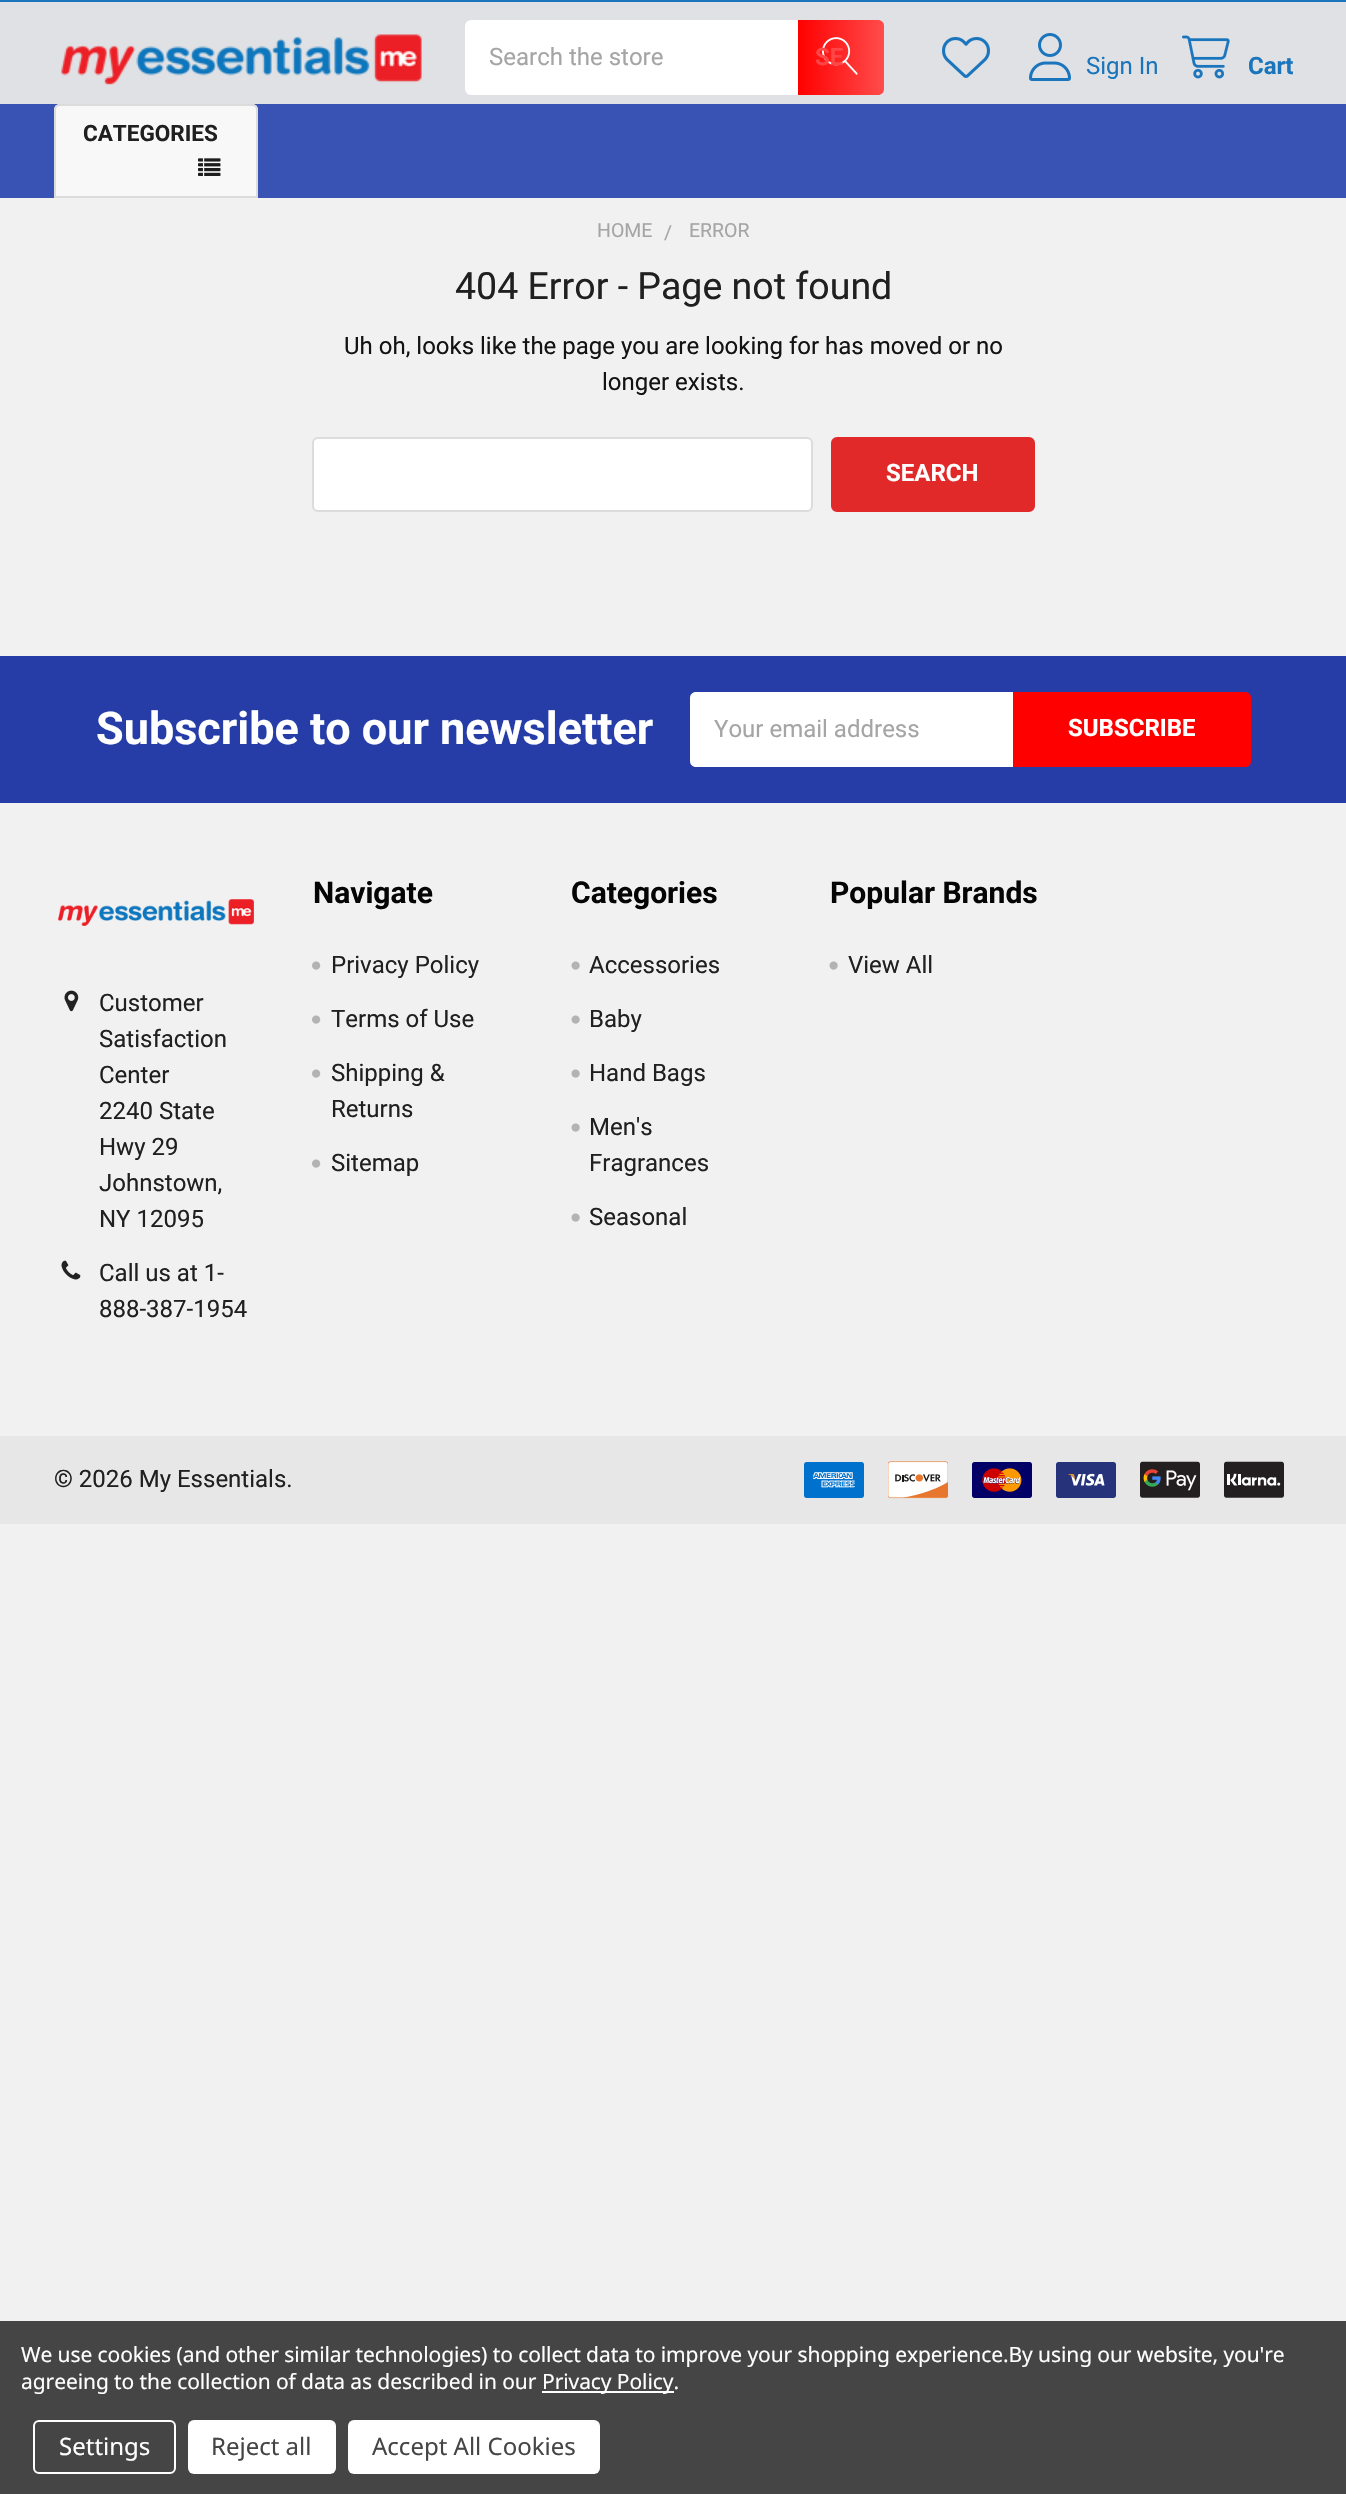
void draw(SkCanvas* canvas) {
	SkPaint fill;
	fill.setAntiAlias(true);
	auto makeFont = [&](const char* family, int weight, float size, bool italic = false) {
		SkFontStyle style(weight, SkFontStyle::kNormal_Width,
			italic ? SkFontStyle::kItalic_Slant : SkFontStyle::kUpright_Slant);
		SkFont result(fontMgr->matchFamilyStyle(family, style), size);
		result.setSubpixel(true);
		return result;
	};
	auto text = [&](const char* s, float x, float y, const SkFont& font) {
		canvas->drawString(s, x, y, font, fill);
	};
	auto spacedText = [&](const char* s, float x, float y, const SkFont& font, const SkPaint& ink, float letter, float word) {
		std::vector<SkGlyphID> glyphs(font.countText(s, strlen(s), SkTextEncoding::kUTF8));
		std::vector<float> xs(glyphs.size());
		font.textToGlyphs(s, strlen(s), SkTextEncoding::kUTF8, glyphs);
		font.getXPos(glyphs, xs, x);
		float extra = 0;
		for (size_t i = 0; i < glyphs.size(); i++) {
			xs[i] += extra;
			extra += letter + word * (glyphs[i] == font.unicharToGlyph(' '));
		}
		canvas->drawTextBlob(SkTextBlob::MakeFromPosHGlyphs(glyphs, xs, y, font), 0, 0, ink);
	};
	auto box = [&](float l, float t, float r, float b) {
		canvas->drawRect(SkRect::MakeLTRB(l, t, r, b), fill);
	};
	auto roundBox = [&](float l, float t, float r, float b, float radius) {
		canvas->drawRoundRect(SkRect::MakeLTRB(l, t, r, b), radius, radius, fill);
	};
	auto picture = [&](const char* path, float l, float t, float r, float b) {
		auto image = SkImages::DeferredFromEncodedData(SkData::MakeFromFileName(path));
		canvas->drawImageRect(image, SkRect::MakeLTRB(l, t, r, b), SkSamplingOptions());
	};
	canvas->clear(0xFFF1F1F2);
	fill.setColor(0xFFE0E1E4);
	box(0, 2, 1346, 104);
	fill.setColor(0xFF1B75BC);
	box(0, 0, 1346, 2);
	picture("image0.png", 61, 34, 422, 85);
	fill.setColor(0xFFFFFFFF);
	roundBox(465, 20, 884, 95, 6);
	{
		const SkColor colors[] = {0xFFFF0000, 0xB3FF0000};
		const float stops[] = {0, 1};
		const SkPoint ends[] = {{798, 57}, {884, 57}};
		fill.setShader(SkGradientShader::MakeLinear(ends, colors, stops, 2, SkTileMode::kClamp));
		fill.setAlpha(255);
	}
	canvas->drawPath(SkPathBuilder().moveTo(798, 20).lineTo(878, 20).cubicTo(881.5f, 20, 884, 22.5f, 884, 26).lineTo(884, 89).cubicTo(884, 92.5f, 881.5f, 95, 878, 95).lineTo(798, 95).close().detach(), fill);
	picture("image1.png", 822, 37, 858, 75);
	picture("image2.png", 942, 36, 990, 78);
	picture("image3.png", 1029, 33, 1071, 81);
	picture("image4.png", 1182, 35, 1230, 79);
	fill.setShader(nullptr);
	fill.setColor(0xFF3853B4);
	box(0, 104, 1346, 198);
	fill.setColor(0xFFF8F8F8);
	roundBox(54, 104, 258, 198, 6);
	fill.setStyle(SkPaint::kStroke_Style);
	fill.setStrokeWidth(2);
	fill.setColor(0xFFDCDCDC);
	canvas->drawPath(SkPathBuilder().moveTo(60, 105).lineTo(252, 105).cubicTo(255, 105, 257, 107, 257, 110).lineTo(257, 197).lineTo(55, 197).lineTo(55, 110).cubicTo(55, 107, 57, 105, 60, 105).close().detach(), fill);
	picture("image5.png", 198, 158, 221, 176);
	fill.setStyle(SkPaint::kFill_Style);
	fill.setColor(0xFFFFFFFF);
	canvas->drawRoundRect(SkRect::MakeLTRB(313, 438, 812, 511), 5, 5, fill);
	fill.setStyle(SkPaint::kStroke_Style);
	fill.setColor(0xFFDCDCDC);
	canvas->drawRoundRect(SkRect::MakeLTRB(313, 438, 812, 511), 5, 5, fill);
	fill.setStyle(SkPaint::kFill_Style);
	fill.setColor(0xFFE12929);
	canvas->drawRoundRect(SkRect::MakeLTRB(832, 438, 1034, 511), 5, 5, fill);
	fill.setStyle(SkPaint::kStroke_Style);
	canvas->drawRoundRect(SkRect::MakeLTRB(832, 438, 1034, 511), 5, 5, fill);
	fill.setStyle(SkPaint::kFill_Style);
	fill.setColor(0xFF263DA8);
	box(0, 656, 1346, 803);
	fill.setColor(0xFFFFFFFF);
	canvas->drawPath(SkPathBuilder().moveTo(696, 692).lineTo(1013, 692).lineTo(1013, 767).lineTo(696, 767).cubicTo(692.5f, 767, 690, 764.5f, 690, 761).lineTo(690, 698).cubicTo(690, 694.5f, 692.5f, 692, 696, 692).close().detach(), fill);
	fill.setColor(0xFFFF0000);
	canvas->drawPath(SkPathBuilder().moveTo(1014, 693).lineTo(1245, 693).cubicTo(1248, 693, 1250, 695, 1250, 698).lineTo(1250, 761).cubicTo(1250, 764, 1248, 766, 1245, 766).lineTo(1014, 766).close().detach(), fill);
	fill.setStyle(SkPaint::kStroke_Style);
	canvas->drawPath(SkPathBuilder().moveTo(1014, 693).lineTo(1245, 693).cubicTo(1248, 693, 1250, 695, 1250, 698).lineTo(1250, 761).cubicTo(1250, 764, 1248, 766, 1245, 766).lineTo(1014, 766).close().detach(), fill);
	picture("image6.png", 312, 961, 321, 970);
	picture("image6.png", 312, 1015, 321, 1024);
	picture("image6.png", 312, 1069, 321, 1078);
	picture("image6.png", 312, 1159, 321, 1168);
	picture("image7.png", 571, 961, 580, 970);
	picture("image7.png", 571, 1015, 580, 1024);
	picture("image7.png", 571, 1069, 580, 1078);
	picture("image7.png", 571, 1123, 580, 1132);
	picture("image7.png", 571, 1213, 580, 1222);
	picture("image7.png", 829, 961, 838, 970);
	picture("image8.png", 58, 899, 254, 926);
	picture("image9.png", 64, 990, 79, 1012);
	picture("image10.png", 61, 1260, 81, 1280);
	fill.setStyle(SkPaint::kFill_Style);
	fill.setColor(0xFFE7E7E8);
	box(0, 1436, 1346, 1524);
	picture("image11.png", 804, 1462, 864, 1498);
	picture("image12.png", 888, 1461, 948, 1499);
	picture("image13.png", 972, 1462, 1032, 1498);
	picture("image14.png", 1056, 1462, 1116, 1498);
	picture("image15.png", 1140, 1461, 1200, 1498);
	picture("image16.png", 1224, 1461, 1284, 1498);
	fill.setColor(0xFF454545);
	box(0, 2321, 1346, 2494);
	fill.setColor(0xFFFFFFFF);
	box(542, 2391, 674, 2393);
	fill.setStyle(SkPaint::kStroke_Style);
	canvas->drawRoundRect(SkRect::MakeLTRB(34, 2421, 175, 2473), 5, 5, fill);
	fill.setStyle(SkPaint::kFill_Style);
	roundBox(188, 2420, 336, 2474, 6);
	roundBox(348, 2420, 600, 2474, 6);
	auto font1 = makeFont("Roboto", 400, 24);
	fill.setColor(0xFFA5A5A5);
	text("Search the store", 489, 65, font1);
	auto font2 = makeFont("Roboto", 700, 24);
	fill.setColor(0xFFFF4545);
	text("SE", 815, 65, font2);
	fill.setColor(0xFF1B75BC);
	text("Sign In", 1086, 74, font1);
	text("Cart", 1248, 74, font2);
	auto font3 = makeFont("Roboto", 700, 22.5f);
	fill.setColor(0xFF202020);
	text("CATEGORIES", 83, 141, font3);
	auto font4 = makeFont("Roboto", 400, 19.5f);
	fill.setColor(0xFFA5A5A5);
	text("HOME", 597, 237, font4);
	text("/", 664, 239, font4);
	text("ERROR", 689, 237, font4);
	auto font5 = makeFont("Roboto", 400, 37.5f);
	fill.setColor(0xFF202020);
	text("404 Error - Page not found", 455, 299, font5);
	fill.setColor(0xFF131313);
	text("Uh oh, looks like the page you are looking for has moved or no", 344, 354, font1);
	text("longer exists.", 602, 390, font1);
	fill.setColor(0xFFFFFFFF);
	text("SEARCH", 886, 481, font2);
	auto font6 = makeFont("Roboto", 700, 45);
	text("Subscribe to our newsletter", 96, 744, font6);
	fill.setColor(0xFFA5A5A5);
	text("Your email address", 714, 737, font1);
	fill.setColor(0xFFFFFFFF);
	text("SUBSCRIBE", 1068, 736, font2);
	auto font7 = makeFont("Roboto", 700, 30);
	fill.setColor(0xFF050505);
	text("Navigate", 313, 903, font7);
	fill.setColor(0xFF202020);
	text("Privacy Policy", 331, 973, font1);
	text("Terms of Use", 331, 1027, font1);
	text("Shipping &", 331, 1081, font1);
	text("Returns", 331, 1117, font1);
	text("Sitemap", 331, 1171, font1);
	fill.setColor(0xFF050505);
	text("Categories", 571, 903, font7);
	fill.setColor(0xFF202020);
	text("Accessories", 589, 973, font1);
	text("Baby", 589, 1027, font1);
	text("Hand Bags", 589, 1081, font1);
	text("Men's", 589, 1135, font1);
	text("Fragrances", 589, 1171, font1);
	text("Seasonal", 589, 1225, font1);
	fill.setColor(0xFF050505);
	text("Popular Brands", 830, 903, font7);
	fill.setColor(0xFF202020);
	text("View All", 848, 973, font1);
	text("Customer", 99, 1011, font1);
	text("Satisfaction", 99, 1047, font1);
	text("Center", 99, 1083, font1);
	text("2240 State", 99, 1119, font1);
	text("Hwy 29", 99, 1155, font1);
	text("Johnstown,", 99, 1191, font1);
	text("NY 12095", 99, 1227, font1);
	text("Call us at 1-", 99, 1281, font1);
	text("888-387-1954", 99, 1317, font1);
	text("© 2026 My Essentials.", 54, 1487, font1);
	auto font8 = makeFont("Noto Sans", 400, 21);
	fill.setColor(0xFFFFFFFF);
	spacedText("We use cookies (and other similar technologies) to collect data to improve your shopping experience.By using our website, you're", 21, 2362, font8, fill, -0.08f, 0);
	spacedText("agreeing to the collection of data as described in our", 21, 2389, font8, fill, -0.08f, 0);
	spacedText("Privacy Policy.", 542, 2389, font8, fill, -0.08f, 0);
	auto font9 = makeFont("Noto Sans", 400, 24);
	text("Settings", 59, 2455, font9);
	fill.setColor(0xFF454545);
	text("Reject all", 211, 2455, font9);
	text("Accept All Cookies", 372, 2455, font9);
}
